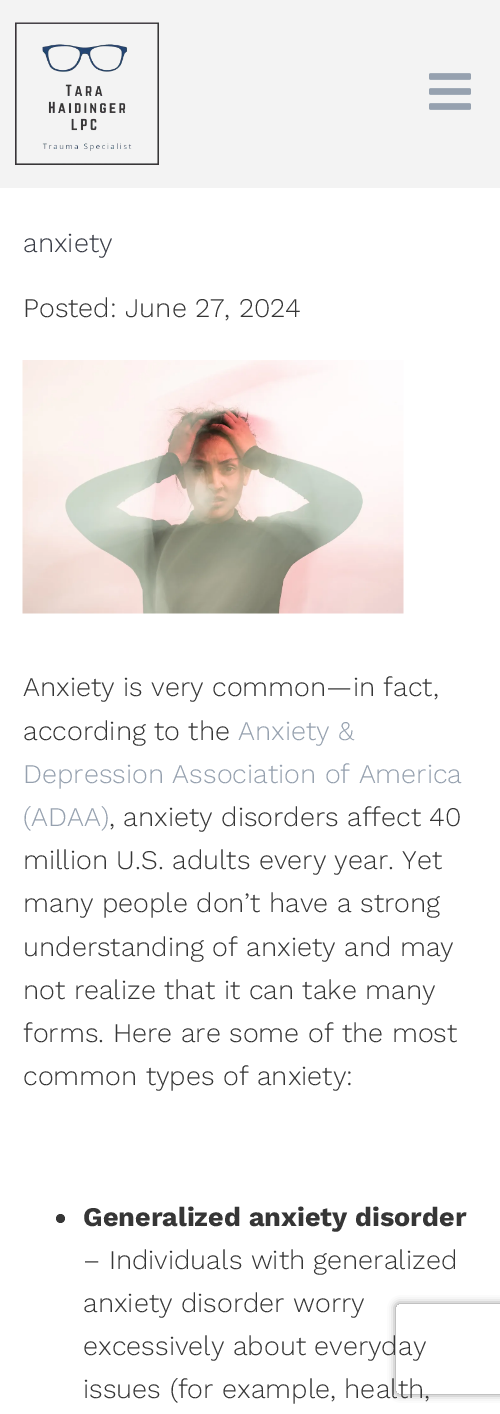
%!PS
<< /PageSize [500 1414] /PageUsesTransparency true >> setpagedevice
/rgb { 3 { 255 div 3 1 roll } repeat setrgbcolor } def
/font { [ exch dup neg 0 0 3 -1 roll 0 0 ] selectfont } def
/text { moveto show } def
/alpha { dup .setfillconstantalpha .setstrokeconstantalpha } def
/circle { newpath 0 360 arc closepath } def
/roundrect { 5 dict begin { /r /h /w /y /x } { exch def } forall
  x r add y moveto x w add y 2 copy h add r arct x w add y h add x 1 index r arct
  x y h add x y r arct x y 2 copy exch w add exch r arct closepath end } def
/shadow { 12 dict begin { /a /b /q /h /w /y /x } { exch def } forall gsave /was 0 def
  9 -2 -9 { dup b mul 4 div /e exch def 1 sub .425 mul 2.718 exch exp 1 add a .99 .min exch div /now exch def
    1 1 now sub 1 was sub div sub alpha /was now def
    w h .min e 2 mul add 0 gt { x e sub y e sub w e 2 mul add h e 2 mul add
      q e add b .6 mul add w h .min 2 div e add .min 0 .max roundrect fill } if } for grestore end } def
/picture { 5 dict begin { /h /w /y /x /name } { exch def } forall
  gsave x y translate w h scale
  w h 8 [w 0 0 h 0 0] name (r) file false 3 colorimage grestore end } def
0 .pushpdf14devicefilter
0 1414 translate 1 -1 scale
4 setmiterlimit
255 255 255 rgb
0 0 500 1414 rectfill
243 243 243 rgb
0 0 500 188 rectfill
(img_01.rgb) 15 22 144 143 picture
(img_02.rgb) 429 73 42 37 picture
(img_03.rgb) 22 360 382 254 picture
54 54 54 rgb
60.5 1218.5 4.5 circle fill
gsave
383 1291 moveto 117 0 rlineto 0 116 rlineto -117 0 rlineto closepath 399 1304 moveto 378 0 rlineto 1.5 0 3 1.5 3 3 rcurveto 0 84 rlineto 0 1.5 -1.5 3 -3 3 rcurveto -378 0 rlineto -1.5 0 -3 -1.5 -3 -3 rcurveto 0 -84 rlineto 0 -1.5 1.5 -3 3 -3 rcurveto closepath eoclip newpath
128 128 128 rgb
396 1304 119 90 3 4 1 shadow
grestore
/WorkSans-Light 27 font
57 60 70 rgb
(anxiety) 23 252 text
54 54 54 rgb
(Posted: June 27, 2024) 23 317 text
(Anxiety is very common—in fact,) 23 696 text
(according to the) 23 740 text
150 161 175 rgb
(Anxiety &) 238 740 text
(Depression Association of America) 23 783 text
(\(ADAA\)) 23 826 text
54 54 54 rgb
(, anxiety disorders affect 40) 109 826 text
(million U.S. adults every year. Yet) 23 869 text
(many people don’t have a strong) 23 912 text
(understanding of anxiety and may) 23 956 text
(not realize that it can take many) 23 999 text
(forms. Here are some of the most) 23 1042 text
(common types of anxiety:) 23 1085 text
/WorkSans-Bold 27 font
(Generalized anxiety disorder) 83 1226 text
/WorkSans-Light 27 font
(– Individuals with generalized) 83 1269 text
(anxiety disorder worry) 83 1312 text
(excessively about everyday) 83 1355 text
(issues \(for example, health,) 83 1398 text
.poppdf14devicefilter showpage
